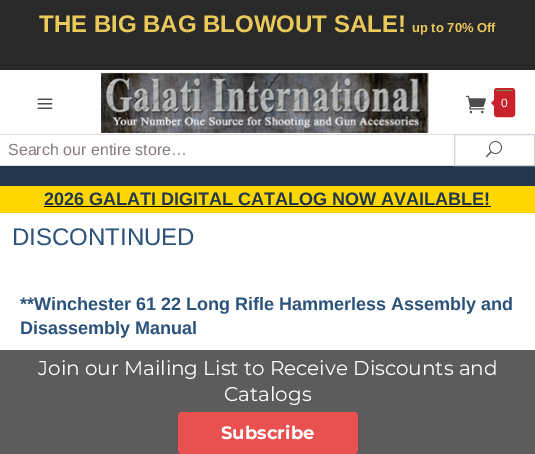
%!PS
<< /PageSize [535 454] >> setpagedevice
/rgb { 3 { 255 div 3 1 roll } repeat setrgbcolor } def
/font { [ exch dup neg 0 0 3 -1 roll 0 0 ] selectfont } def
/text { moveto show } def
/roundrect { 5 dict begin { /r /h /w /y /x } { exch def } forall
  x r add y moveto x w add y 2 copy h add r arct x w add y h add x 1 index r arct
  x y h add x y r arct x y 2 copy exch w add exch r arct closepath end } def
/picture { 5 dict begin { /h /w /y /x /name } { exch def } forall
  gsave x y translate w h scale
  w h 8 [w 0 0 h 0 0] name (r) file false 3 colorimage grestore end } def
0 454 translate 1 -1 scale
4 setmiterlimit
255 255 255 rgb
0 0 535 454 rectfill
41 41 41 rgb
0 0 535 70 rectfill
36 54 74 rgb
0 166 535 20 rectfill
(img_01.rgb) 37 98 16 11 picture
(img_02.rgb) 101 72 328 61 picture
(img_03.rgb) 466 95 20 19 picture
56 197 116 rgb
495 89 19 27 2 roundrect gsave fill grestore
201 34 42 rgb
2 setlinewidth
stroke
496 98 moveto 0 10 rlineto -5 -5 rlineto closepath fill
496 91 17 24 rectfill
222 222 222 rgb
0 134 454 1 rectfill
0 165 454 1 rectfill
204 209 217 rgb
1 setlinewidth
454.5 134.5 80 31 rectstroke
(img_04.rgb) 486 141 16 16 picture
255 215 0 rgb
0 186 535 27 rectfill
0 0 0 rgb
44 206 447 1 rectfill
92 92 92 rgb
0 350 535 104 rectfill
233 80 80 rgb
178 412 180 42 4 roundrect fill
/LiberationSans-Bold 24 font
234 201 91 rgb
(THE BIG BAG BLOWOUT SALE!) 39 32 text
/LiberationSans-Bold 13 font
(up to 70% Off) 412 32 text
/LiberationSans-Regular 12 font
255 255 255 rgb
(0) 501 107 text
/LiberationSans-Regular 16 font
138 123 123 rgb
(Search our entire store…) 8 155 text
/LiberationSans-Bold 18 font
35 55 74 rgb
(2026 GALATI DIGITAL CATALOG NOW AVAILABLE!) 44 205 text
/LiberationSans-Regular 24 font
42 82 122 rgb
(DISCONTINUED) 12 245 text
/LiberationSans-Bold 18 font
(**Winchester 61 22 Long Rifle Hammerless Assembly and) 20 310 text
(Disassembly Manual) 20 334 text
/Montserrat-Regular 20 font
255 255 255 rgb
(Join our Mailing List to Receive Discounts and) 38 375 text
(Catalogs) 224 401 text
/Montserrat-Bold 18 font
(Subscribe) 221 439 text
showpage
